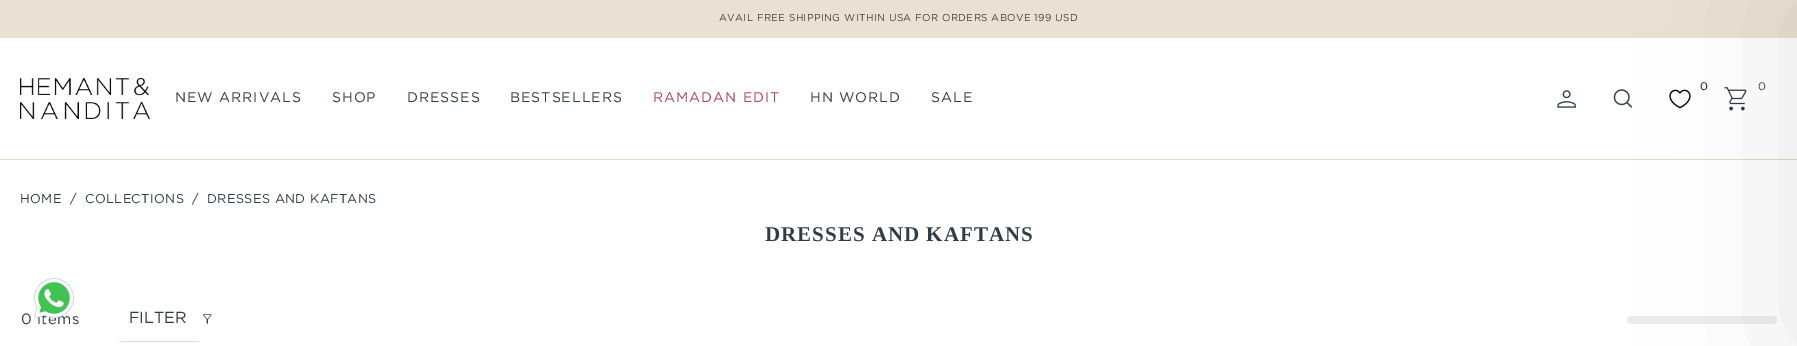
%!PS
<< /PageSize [1797 346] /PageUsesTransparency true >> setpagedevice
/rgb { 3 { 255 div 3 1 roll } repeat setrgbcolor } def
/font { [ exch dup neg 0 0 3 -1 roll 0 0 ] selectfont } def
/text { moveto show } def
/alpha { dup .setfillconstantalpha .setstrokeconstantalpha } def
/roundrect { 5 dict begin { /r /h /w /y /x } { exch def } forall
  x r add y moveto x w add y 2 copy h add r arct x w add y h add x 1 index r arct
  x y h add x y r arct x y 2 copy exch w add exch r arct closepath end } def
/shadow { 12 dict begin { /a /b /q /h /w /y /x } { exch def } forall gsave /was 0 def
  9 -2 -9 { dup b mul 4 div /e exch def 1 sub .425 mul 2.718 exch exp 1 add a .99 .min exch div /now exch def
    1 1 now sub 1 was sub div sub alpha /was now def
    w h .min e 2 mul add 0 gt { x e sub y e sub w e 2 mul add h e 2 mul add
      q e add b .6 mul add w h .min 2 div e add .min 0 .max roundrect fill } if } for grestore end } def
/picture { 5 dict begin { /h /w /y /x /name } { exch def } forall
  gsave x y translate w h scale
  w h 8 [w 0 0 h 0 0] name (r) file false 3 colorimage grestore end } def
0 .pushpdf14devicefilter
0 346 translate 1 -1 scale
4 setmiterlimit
255 255 255 rgb
0 0 1797 346 rectfill
234 225 212 rgb
0 0 1797 38 rectfill
233 216 195 rgb
0 159 1797 1 rectfill
(img_02.rgb) 1669 89 22 20 picture
(img_03.rgb) 1724 87 23 24 picture
(img_04.rgb) 1557 90 19 18 picture
(img_05.rgb) 1613 89 20 19 picture
237 237 237 rgb
1627 316 150 8 4 roundrect fill
0 0 0 rgb
1797 0 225 346 0 75 0.1 shadow
(img_01.rgb) 20 78 130 41 picture
233 216 195 rgb
119 341 80 1 rectfill
(img_06.rgb) 202 314 10 10 picture
/Gotham-Regular 10 font
78 70 37 rgb
719 21 moveto 0.38 0 (AVAIL FREE SHIPPING WITHIN USA FOR ORDERS ABOVE 199 USD) ashow
/Gotham-Regular 11 font
0 0 0 rgb
1700 90 moveto 1 0 (0) ashow
47 59 73 rgb
1758 90 moveto 1 0 (0) ashow
/Gotham-Regular 14 font
175 102 moveto 1 0 (NEW ARRIVALS) ashow
332 102 moveto 1 0 (SHOP) ashow
407 102 moveto 1 0 (DRESSES) ashow
510 102 moveto 1 0 (BESTSELLERS) ashow
177 64 104 rgb
653 102 moveto 1 0 (RAMADAN EDIT) ashow
47 59 73 rgb
810 102 moveto 1 0 (HN WORLD) ashow
931 102 moveto 1 0 (SALE) ashow
/Gotham-Regular 12.75 font
20 203 moveto 0.38 0 (HOME) ashow
70 203 moveto 0.38 0 (/) ashow
85 203 moveto 0.38 0 (COLLECTIONS) ashow
192 203 moveto 0.38 0 (/) ashow
207 203 moveto 0.38 0 (DRESSES AND KAFTANS) ashow
/LiberationSerif-Bold 21 font
765 241 moveto 1 0 (DRESSES AND KAFTANS) ashow
/Gotham-Regular 15 font
21 324 moveto 0.38 0 (0 items) ashow
/Gotham-Regular 16 font
(FILTER) 129 323 text
(img_07.rgb) 34 278 40 40 picture
.poppdf14devicefilter showpage
